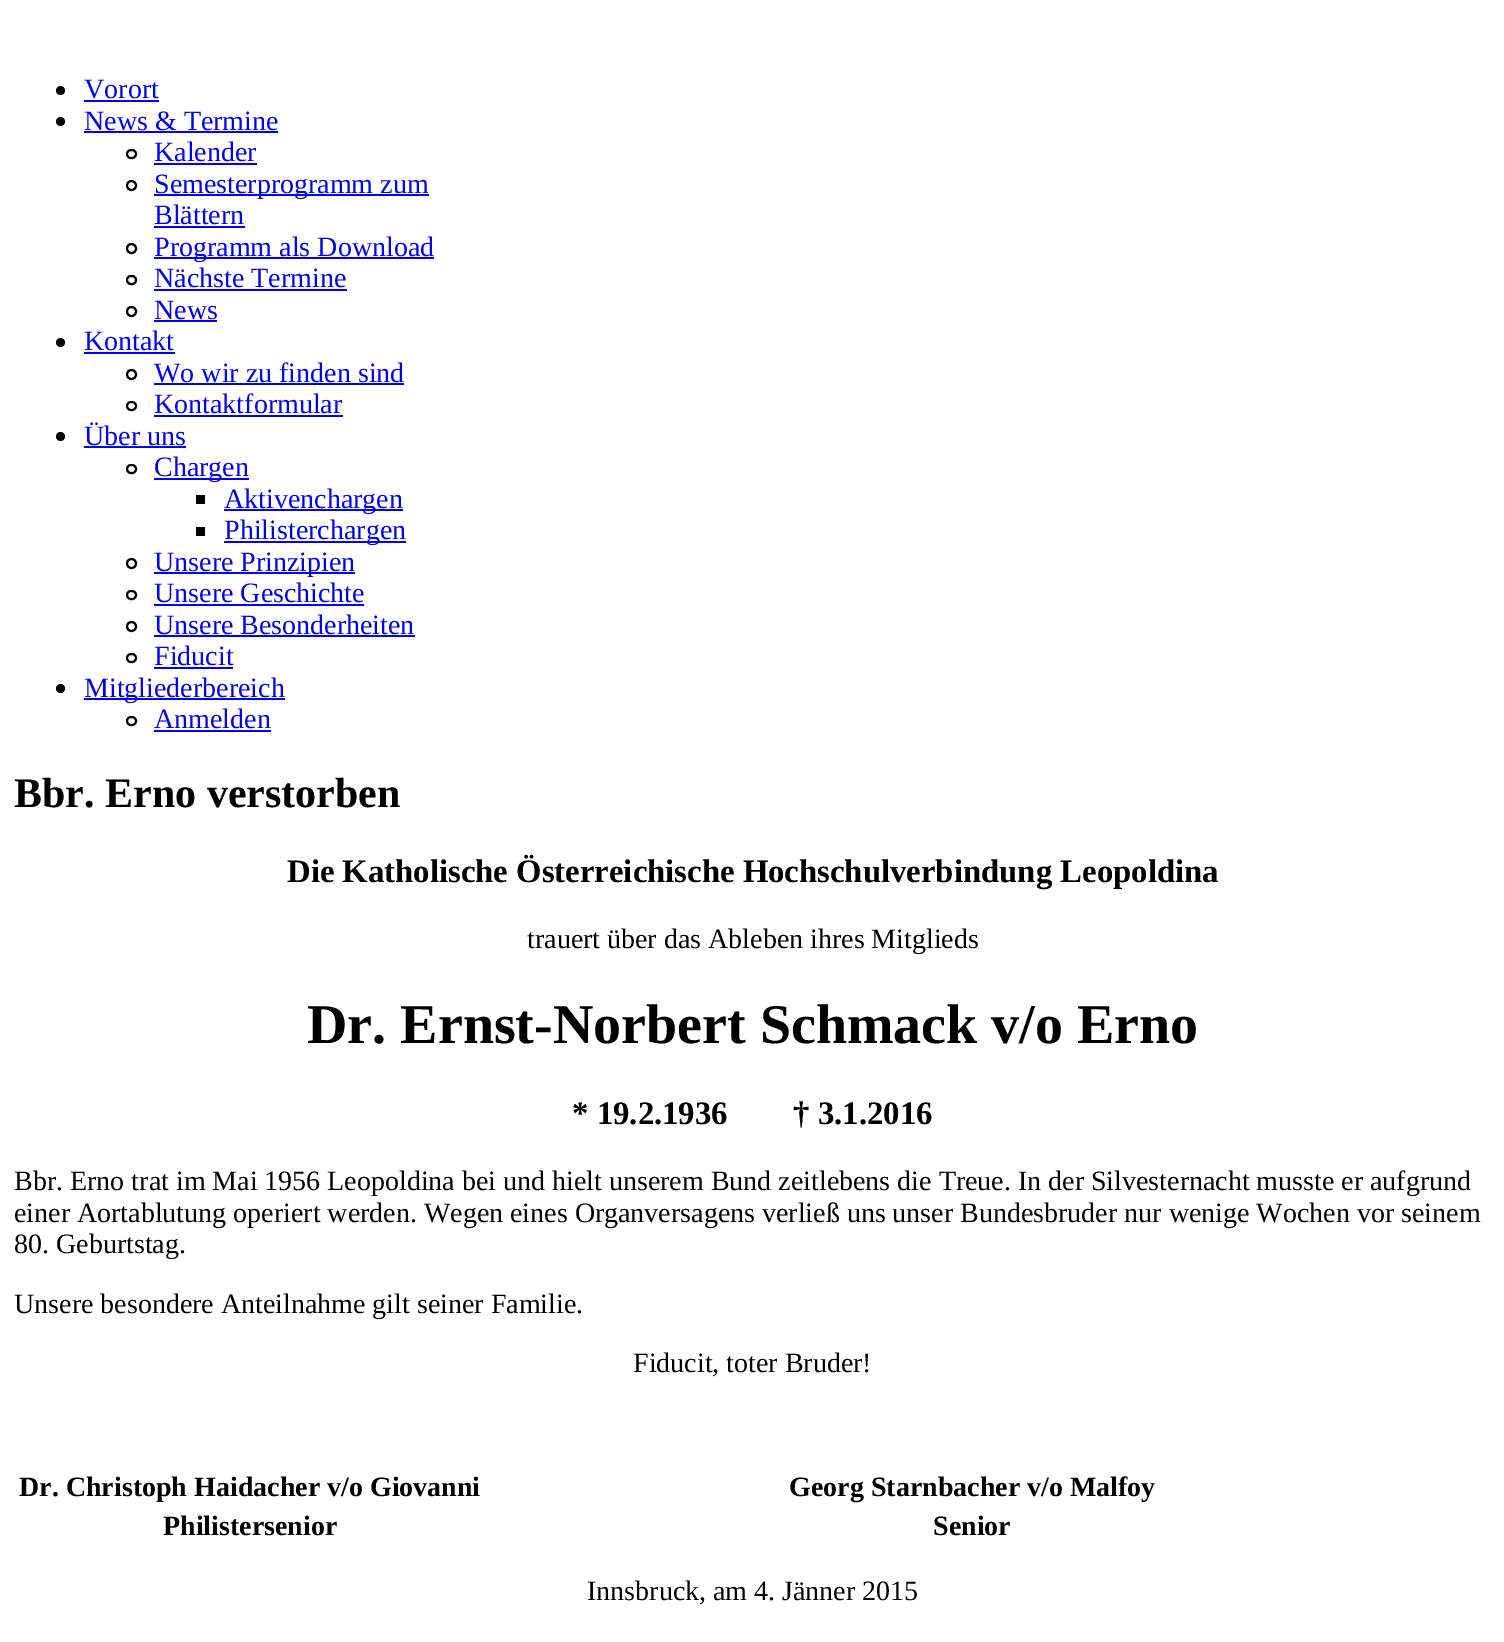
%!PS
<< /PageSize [1504 1642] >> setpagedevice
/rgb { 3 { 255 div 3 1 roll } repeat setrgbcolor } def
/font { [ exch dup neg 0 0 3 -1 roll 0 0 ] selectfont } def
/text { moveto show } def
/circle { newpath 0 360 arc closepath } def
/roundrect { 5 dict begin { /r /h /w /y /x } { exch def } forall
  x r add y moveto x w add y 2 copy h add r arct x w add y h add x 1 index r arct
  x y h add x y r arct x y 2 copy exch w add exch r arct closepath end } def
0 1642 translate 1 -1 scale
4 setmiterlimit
255 255 255 rgb
0 0 1504 1642 rectfill
0 0 0 rgb
60.5 90.5 4.5 circle fill
0 0 238 rgb
84 100 75 2 rectfill
0 0 0 rgb
60.5 121.5 4.5 circle fill
0 0 238 rgb
84 131 194 2 rectfill
0 0 0 rgb
2 setlinewidth
127 150 9 8 4 roundrect stroke
0 0 238 rgb
154 163 103 2 rectfill
0 0 0 rgb
131.5 185.5 4.5 circle stroke
0 0 238 rgb
154 194 275 2 rectfill
154 226 91 2 rectfill
0 0 0 rgb
131.5 248.5 4.5 circle stroke
0 0 238 rgb
154 257 280 2 rectfill
0 0 0 rgb
127 276 9 8 4 roundrect stroke
0 0 238 rgb
154 289 193 2 rectfill
0 0 0 rgb
131.5 311.5 4.5 circle stroke
0 0 238 rgb
154 320 63 2 rectfill
0 0 0 rgb
60.5 342.5 4.5 circle fill
0 0 238 rgb
84 352 91 2 rectfill
0 0 0 rgb
131.5 374.5 4.5 circle stroke
0 0 238 rgb
154 383 250 2 rectfill
0 0 0 rgb
127 402 9 8 4 roundrect stroke
0 0 238 rgb
154 415 189 2 rectfill
0 0 0 rgb
60.5 436.5 4.5 circle fill
0 0 238 rgb
84 446 102 2 rectfill
0 0 0 rgb
127 465 9 8 4 roundrect stroke
0 0 238 rgb
154 478 95 2 rectfill
0 0 0 rgb
196 495 9 9 rectfill
0 0 238 rgb
224 509 179 2 rectfill
0 0 0 rgb
196 527 9 9 rectfill
0 0 238 rgb
224 541 182 2 rectfill
0 0 0 rgb
131.5 563.5 4.5 circle stroke
0 0 238 rgb
154 572 201 2 rectfill
0 0 0 rgb
127 591 9 8 4 roundrect stroke
0 0 238 rgb
154 604 210 2 rectfill
0 0 0 rgb
131.5 626.5 4.5 circle stroke
0 0 238 rgb
154 635 261 2 rectfill
0 0 0 rgb
127 654 9 8 4 roundrect stroke
0 0 238 rgb
154 667 79 2 rectfill
0 0 0 rgb
60.5 688.5 4.5 circle fill
0 0 238 rgb
84 698 201 2 rectfill
0 0 0 rgb
127 717 9 8 4 roundrect stroke
0 0 238 rgb
154 730 117 2 rectfill
/LiberationSerif-Regular 28 font
(Vorort) 84 98 text
(News & Termine) 84 130 text
(Kalender) 154 161 text
(Semesterprogramm zum) 154 193 text
(Blättern) 154 224 text
(Programm als Download) 154 256 text
(Nächste Termine) 154 287 text
(News) 154 319 text
(Kontakt) 84 350 text
(Wo wir zu finden sind) 154 382 text
(Kontaktformular) 154 413 text
(Über uns) 84 445 text
(Chargen) 154 476 text
(Aktivenchargen) 224 508 text
(Philisterchargen) 224 539 text
(Unsere Prinzipien) 154 571 text
(Unsere Geschichte) 154 602 text
(Unsere Besonderheiten) 154 634 text
(Fiducit) 154 665 text
(Mitgliederbereich) 84 697 text
(Anmelden) 154 728 text
/LiberationSerif-Bold 42 font
0 0 0 rgb
(Bbr. Erno verstorben) 14 807 text
/LiberationSerif-Bold 32.75 font
(Die Katholische Österreichische Hochschulverbindung Leopoldina) 287 882 text
/LiberationSerif-Regular 28 font
(trauert über das Ableben ihres Mitglieds) 527 948 text
/LiberationSerif-Bold 56 font
(Dr. Ernst-Norbert Schmack v/o Erno) 307 1043 text
/LiberationSerif-Bold 32.75 font
(* 19.2.1936        † 3.1.2016) 572 1124 text
/LiberationSerif-Regular 28 font
(Bbr. Erno trat im Mai 1956 Leopoldina bei und hielt unserem Bund zeitlebens die Treue. In der Silvesternacht musste er aufgrund) 14 1190 text
(einer Aortablutung operiert werden. Wegen eines Organversagens verließ uns unser Bundesbruder nur wenige Wochen vor seinem) 14 1222 text
(80. Geburtstag.) 14 1253 text
(Unsere besondere Anteilnahme gilt seiner Familie.) 14 1313 text
(Fiducit, toter Bruder!) 633 1372 text
/LiberationSerif-Bold 28 font
(Dr. Christoph Haidacher v/o Giovanni) 19 1496 text
(Georg Starnbacher v/o Malfoy) 789 1496 text
(Philistersenior) 163 1535 text
(Senior) 933 1535 text
/LiberationSerif-Regular 28 font
(Innsbruck, am 4. Jänner 2015) 587 1600 text
showpage
